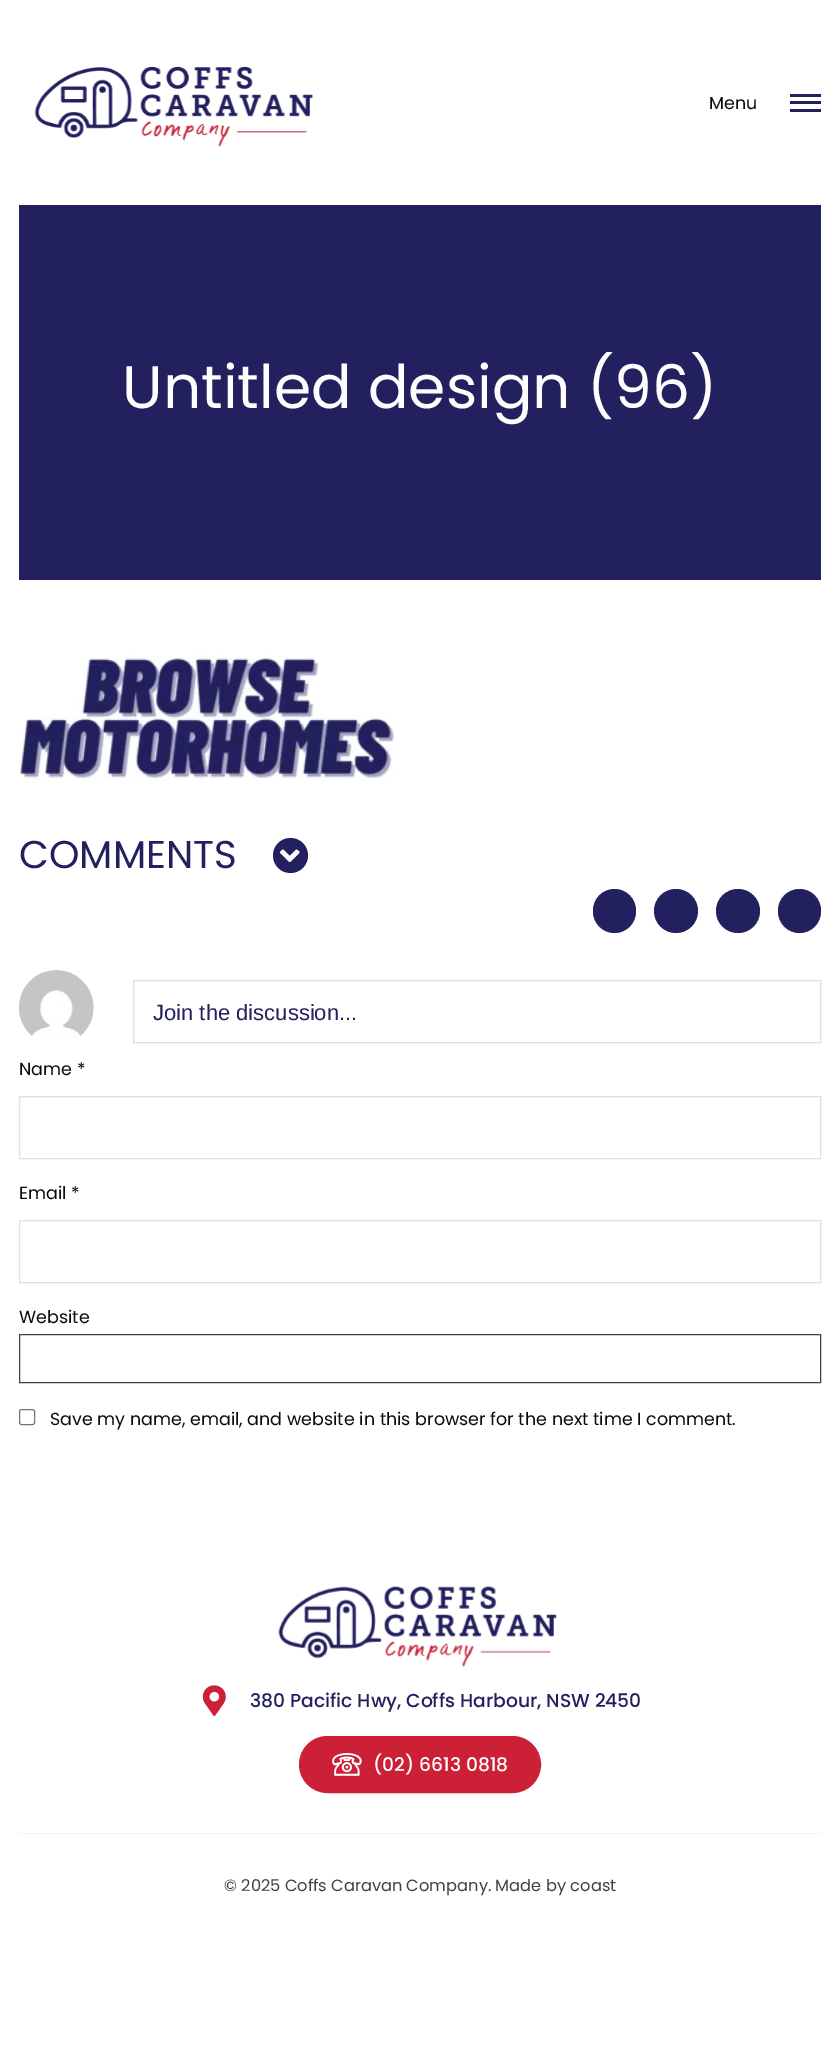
%!PS
<< /PageSize [840 2056] >> setpagedevice
/rgb { 3 { 255 div 3 1 roll } repeat setrgbcolor } def
/font { [ exch dup neg 0 0 3 -1 roll 0 0 ] selectfont } def
/text { moveto show } def
/circle { newpath 0 360 arc closepath } def
/roundrect { 5 dict begin { /r /h /w /y /x } { exch def } forall
  x r add y moveto x w add y 2 copy h add r arct x w add y h add x 1 index r arct
  x y h add x y r arct x y 2 copy exch w add exch r arct closepath end } def
/picture { 5 dict begin { /h /w /y /x /name } { exch def } forall
  gsave x y translate w h scale
  w h 8 [w 0 0 h 0 0] name (r) file false 3 colorimage grestore end } def
0 2056 translate 1 -1 scale
4 setmiterlimit
255 255 255 rgb
0 0 840 2056 rectfill
(img_01.rgb) 34 66 279 81 picture
34 32 95 rgb
790 94 31 3 rectfill
790 101 31 3 rectfill
790 109 31 3 rectfill
19 205 802 375 rectfill
(img_02.rgb) 19 655 375 125 picture
290.5 855.5 17.5 circle fill
(img_03.rgb) 280 849 20 14 picture
593 889 43 44 21.5 roundrect fill
676 911 22 circle fill
738 911 22 circle fill
778 889 43 44 21.5 roundrect fill
(img_04.rgb) 19 970 75 66 picture
224 224 224 rgb
133.5 980.5 687 62 rectstroke
19.5 1096.5 801 62 rectstroke
19.5 1220.5 801 62 rectstroke
65 65 66 rgb
19.5 1334.5 801 48 rectstroke
118 118 118 rgb
19.5 1409.5 15 15 2 roundrect stroke
(img_05.rgb) 278 1586 279 81 picture
(img_06.rgb) 202 1685 24 31 picture
204 32 54 rgb
300.5 1737.5 239 54 27 roundrect gsave fill grestore
3 setlinewidth
stroke
(img_07.rgb) 332 1753 30 23 picture
242 242 242 rgb
19 1833 802 1 rectfill
/Poppins-Regular 17.5 font
10 10 10 rgb
(Menu) 709 109 text
/Poppins-Regular 60 font
254 254 254 rgb
(Untitled design \(96\)) 122 408 text
/Poppins-Regular 38.75 font
34 32 95 rgb
(COMMENTS) 19 868 text
/LiberationSans-Regular 22 font
(Join the discussion...) 153 1020 text
/Poppins-Regular 17.5 font
10 10 10 rgb
(Name *) 19 1075 text
(Email *) 19 1199 text
(Website) 19 1323 text
(Save my name, email, and website in this browser for the next time I comment.) 50 1425 text
/Poppins-Medium 18.75 font
34 32 95 rgb
(380 Pacific Hwy, Coffs Harbour, NSW 2450) 250 1707 text
254 254 254 rgb
(\(02\) 6613 0818) 373 1771 text
/Poppins-Regular 16.25 font
65 65 66 rgb
(© 2025 Coffs Caravan Company. Made by coast) 224 1891 text
showpage
